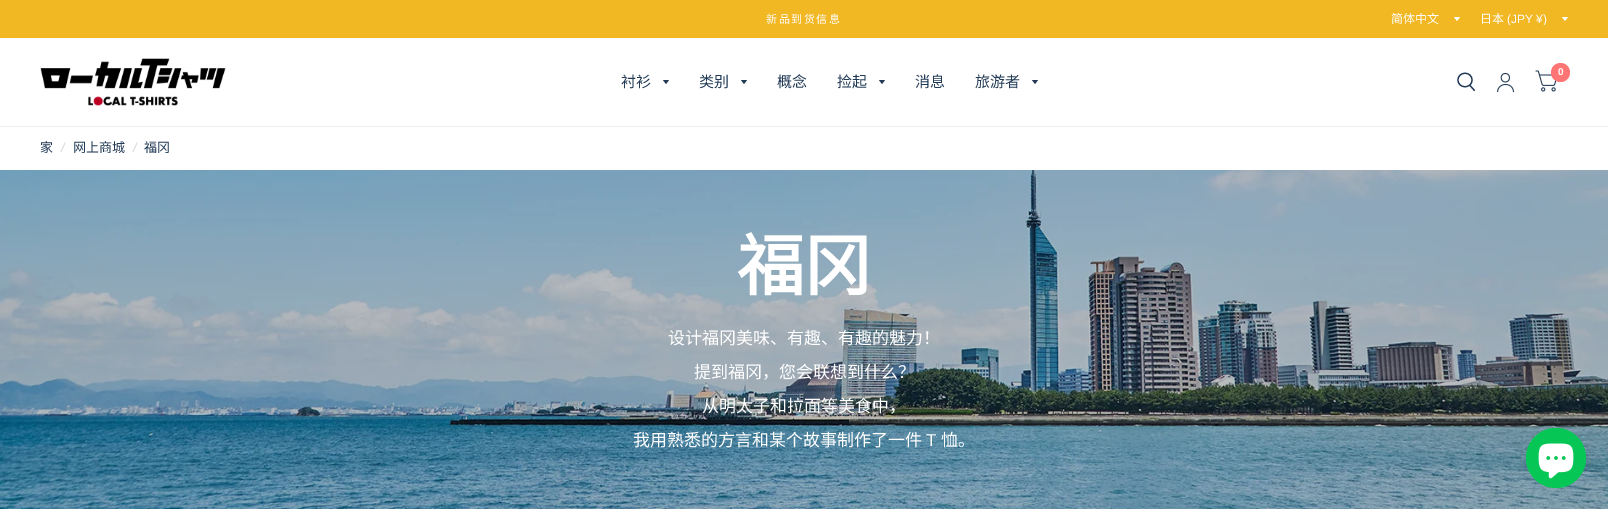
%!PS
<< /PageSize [1608 509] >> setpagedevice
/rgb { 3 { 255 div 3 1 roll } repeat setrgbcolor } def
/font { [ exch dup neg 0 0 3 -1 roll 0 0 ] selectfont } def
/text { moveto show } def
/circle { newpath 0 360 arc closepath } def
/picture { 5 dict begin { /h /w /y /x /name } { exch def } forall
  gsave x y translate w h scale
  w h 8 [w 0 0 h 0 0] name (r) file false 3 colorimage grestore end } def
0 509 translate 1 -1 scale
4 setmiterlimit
255 255 255 rgb
0 0 1608 509 rectfill
241 184 36 rgb
0 0 1608 38 rectfill
255 255 255 rgb
1454 17 moveto 6 0 rlineto -3 4 rlineto closepath fill
1562 17 moveto 6 0 rlineto -3 4 rlineto closepath fill
238 238 238 rgb
0 126 1608 1 rectfill
(img_01.rgb) 40 58 186 48 picture
34 58 86 rgb
1.2 setlinewidth
1 setlinecap
1 setlinejoin
1470 85.5 moveto 4.5 5 rlineto 1472 80 moveto 0 9 -14 9 -14 0 rcurveto 0 -9 14 -9 14 0 rcurveto closepath stroke
(img_02.rgb) 1497 72 18 21 picture
(img_03.rgb) 1535 70 22 22 picture
255 117 117 rgb
1560.5 72.5 9.5 circle fill
34 58 86 rgb
663 80 moveto 6 0 rlineto -3 4 rlineto closepath fill
741 80 moveto 6 0 rlineto -3 4 rlineto closepath fill
879 80 moveto 6 0 rlineto -3 4 rlineto closepath fill
1032 80 moveto 6 0 rlineto -3 4 rlineto closepath fill
(img_04.rgb) 0 170 1608 339 picture
6 199 85 rgb
1556 458 30 circle fill
(img_05.rgb) 1538 443 36 36 picture
/NotoSansCJKSC-Regular 11 font
255 255 255 rgb
766 23 moveto 1.5 0 (新品到货信息) ashow
/NotoSansCJKSC-Regular 12 font
(简体中文) 1391 23 text
(日本) 1480 23 text
gsave
1480 13 78 12 rectclip
/LiberationSans-Regular 12 font
(\(JPY ¥\)) 1507 23 text
grestore
/LiberationSans-Bold 10 font
(0) 1558 75 text
/NotoSansCJKSC-Regular 15 font
34 58 86 rgb
(衬衫) 621 87 text
(类别) 699 87 text
(概念) 777 87 text
(捡起) 837 87 text
(消息) 915 87 text
(旅游者) 975 87 text
/NotoSansCJKSC-Regular 13 font
(家) 40 152 text
/LiberationSans-Italic 13 font
211 216 221 rgb
(/) 61 152 text
/NotoSansCJKSC-Regular 13 font
34 58 86 rgb
(网上商城) 73 152 text
/LiberationSans-Italic 13 font
211 216 221 rgb
(/) 133 152 text
/NotoSansCJKSC-Regular 13 font
34 58 86 rgb
(福冈) 144 152 text
/NotoSansCJKSC-Bold 67 font
255 255 255 rgb
(福冈) 737 290 text
/NotoSansCJKSC-Regular 17 font
(设计福冈美味、有趣、有趣的魅力！) 668 344 text
(提到福冈，您会联想到什么？) 694 378 text
(从明太子和拉面等美食中，) 702 412 text
(我用熟悉的方言和某个故事制作了一件) 633 446 text
/LiberationSans-Regular 17 font
(T) 926 446 text
/NotoSansCJKSC-Regular 17 font
(恤。) 941 446 text
showpage
